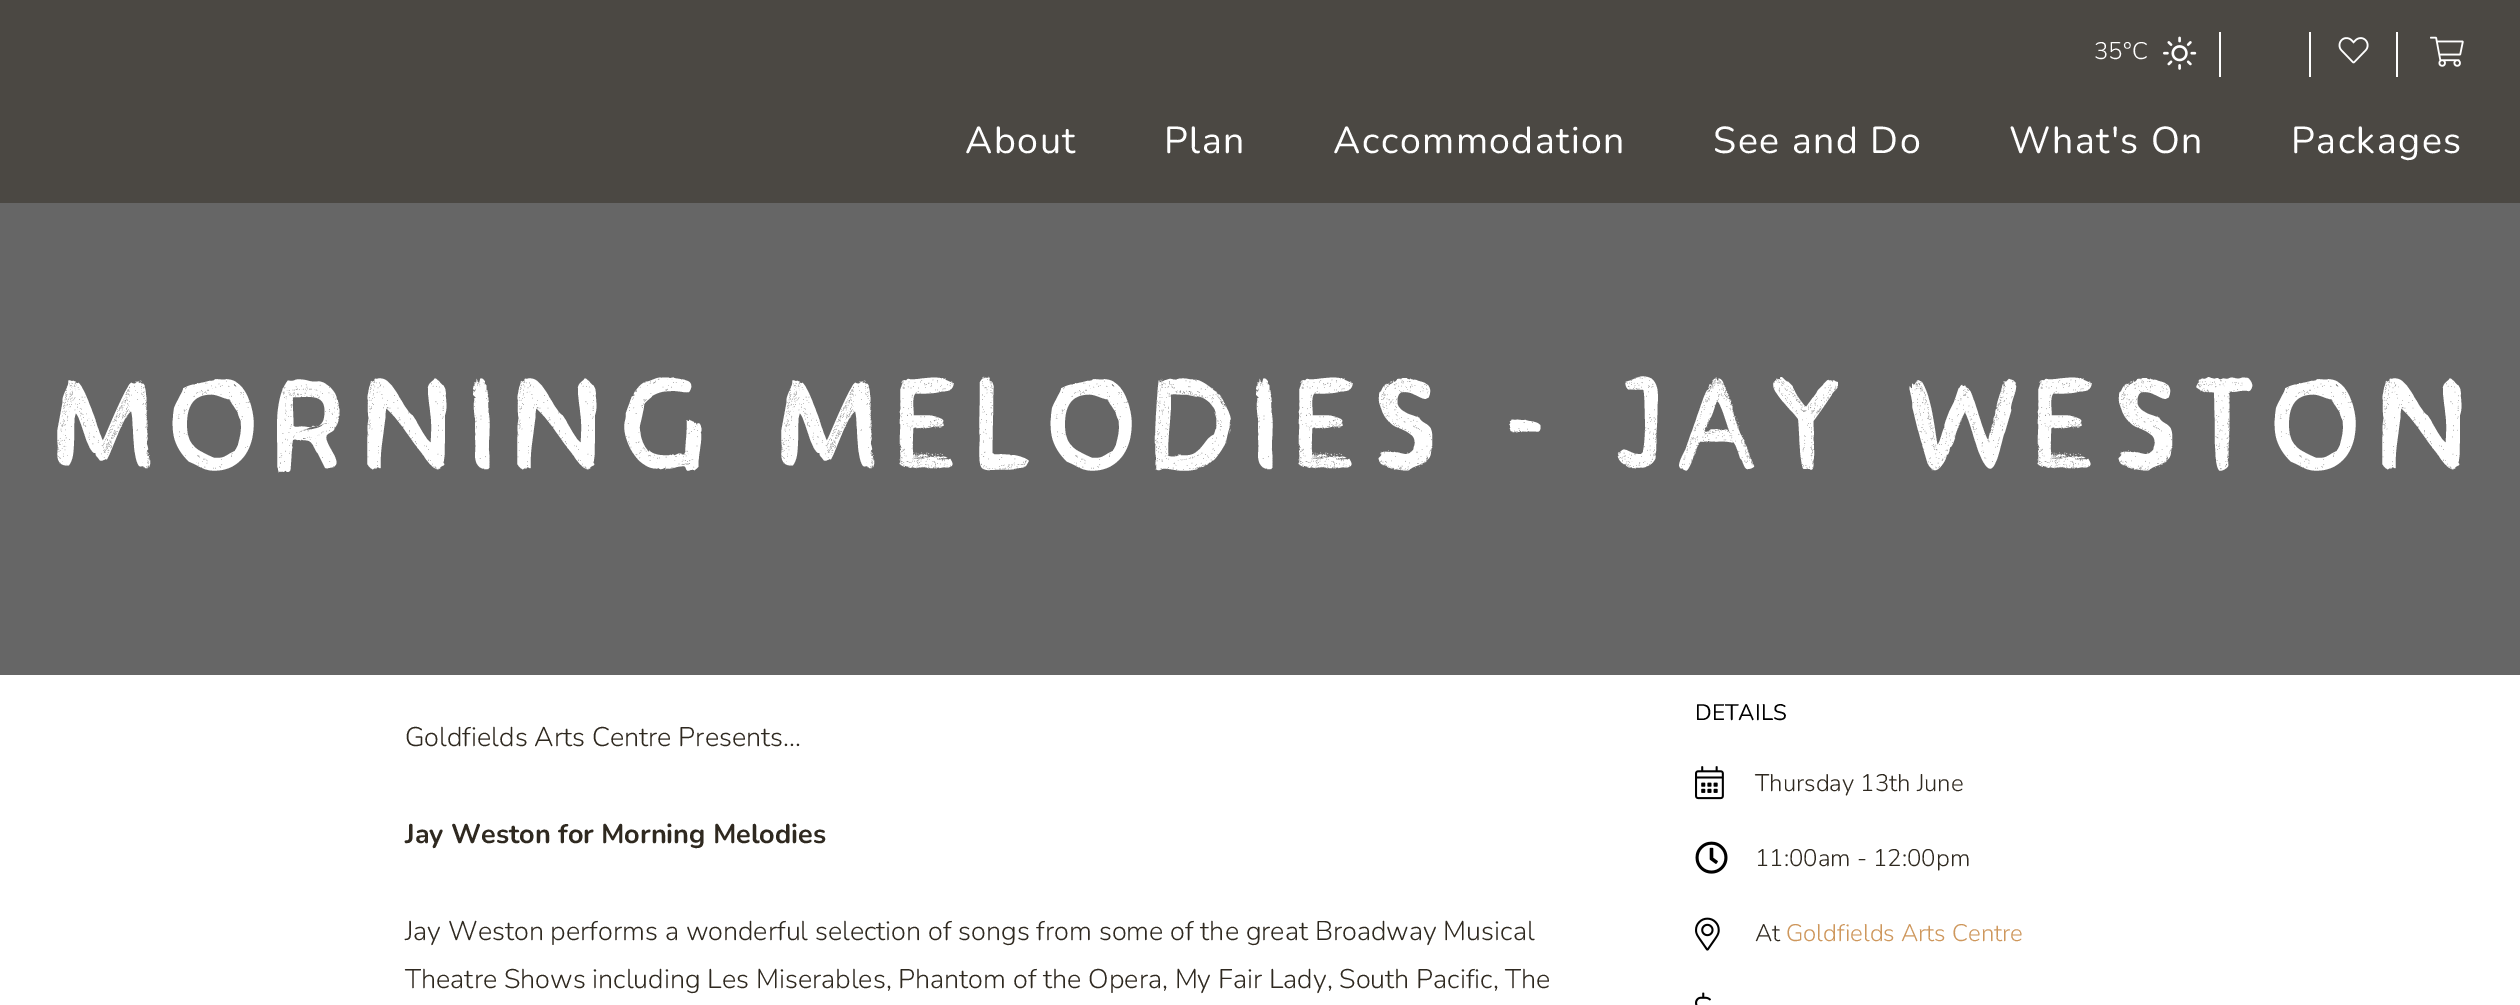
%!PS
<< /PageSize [2520 1005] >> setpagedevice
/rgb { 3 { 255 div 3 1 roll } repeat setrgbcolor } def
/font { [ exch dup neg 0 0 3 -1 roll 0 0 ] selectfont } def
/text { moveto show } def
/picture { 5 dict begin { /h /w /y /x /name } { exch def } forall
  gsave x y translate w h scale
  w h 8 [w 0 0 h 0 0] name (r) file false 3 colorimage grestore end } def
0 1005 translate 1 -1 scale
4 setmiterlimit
255 255 255 rgb
0 0 2520 1005 rectfill
75 72 67 rgb
0 0 2520 203 rectfill
(img_01.rgb) 2163 36 34 34 picture
255 255 255 rgb
2219 32 2 45 rectfill
2309 32 2 45 rectfill
(img_02.rgb) 2338 37 31 27 picture
2396 32 2 45 rectfill
(img_03.rgb) 2430 36 34 31 picture
102 102 102 rgb
0 203 2520 472 rectfill
(img_04.rgb) 1695 766 29 34 picture
(img_05.rgb) 1695 841 33 33 picture
(img_06.rgb) 1695 917 25 34 picture
(img_07.rgb) 1695 992 16 13 picture
/Nunito-Light 24 font
255 255 255 rgb
(35°C) 2094 59 text
/Nunito-Regular 37.5 font
965 153 moveto 1.5 0 (About) ashow
1164 153 moveto 1.5 0 (Plan) ashow
1333 153 moveto 1.5 0 (Accommodation) ashow
1713 153 moveto 1.5 0 (See and Do) ashow
2009 153 moveto 1.5 0 (What's On) ashow
2291 153 moveto 1.5 0 (Packages) ashow
/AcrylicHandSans-Regular 120 font
(Morning Melodies - Jay Weston) 45 469 text
/Nunito-Light 27 font
47 41 32 rgb
(Goldfields Arts Centre Presents...) 405 746 text
/Nunito-Bold 27 font
(Jay Weston for Morning Melodies) 405 843 text
/Nunito-Light 27 font
(Jay Weston performs a wonderful selection of songs from some of the great Broadway Musical) 405 940 text
(Theatre Shows including Les Miserables, Phantom of the Opera, My Fair Lady, South Pacific, The) 405 988 text
/Nunito-Regular 22.5 font
0 0 0 rgb
(DETAILS) 1695 720 text
/Nunito-Light 24 font
47 41 32 rgb
(Thursday 13th June) 1755 791 text
(11:00am - 12:00pm) 1755 866 text
(At) 1755 941 text
206 151 92 rgb
(Goldfields Arts Centre) 1786 941 text
showpage
